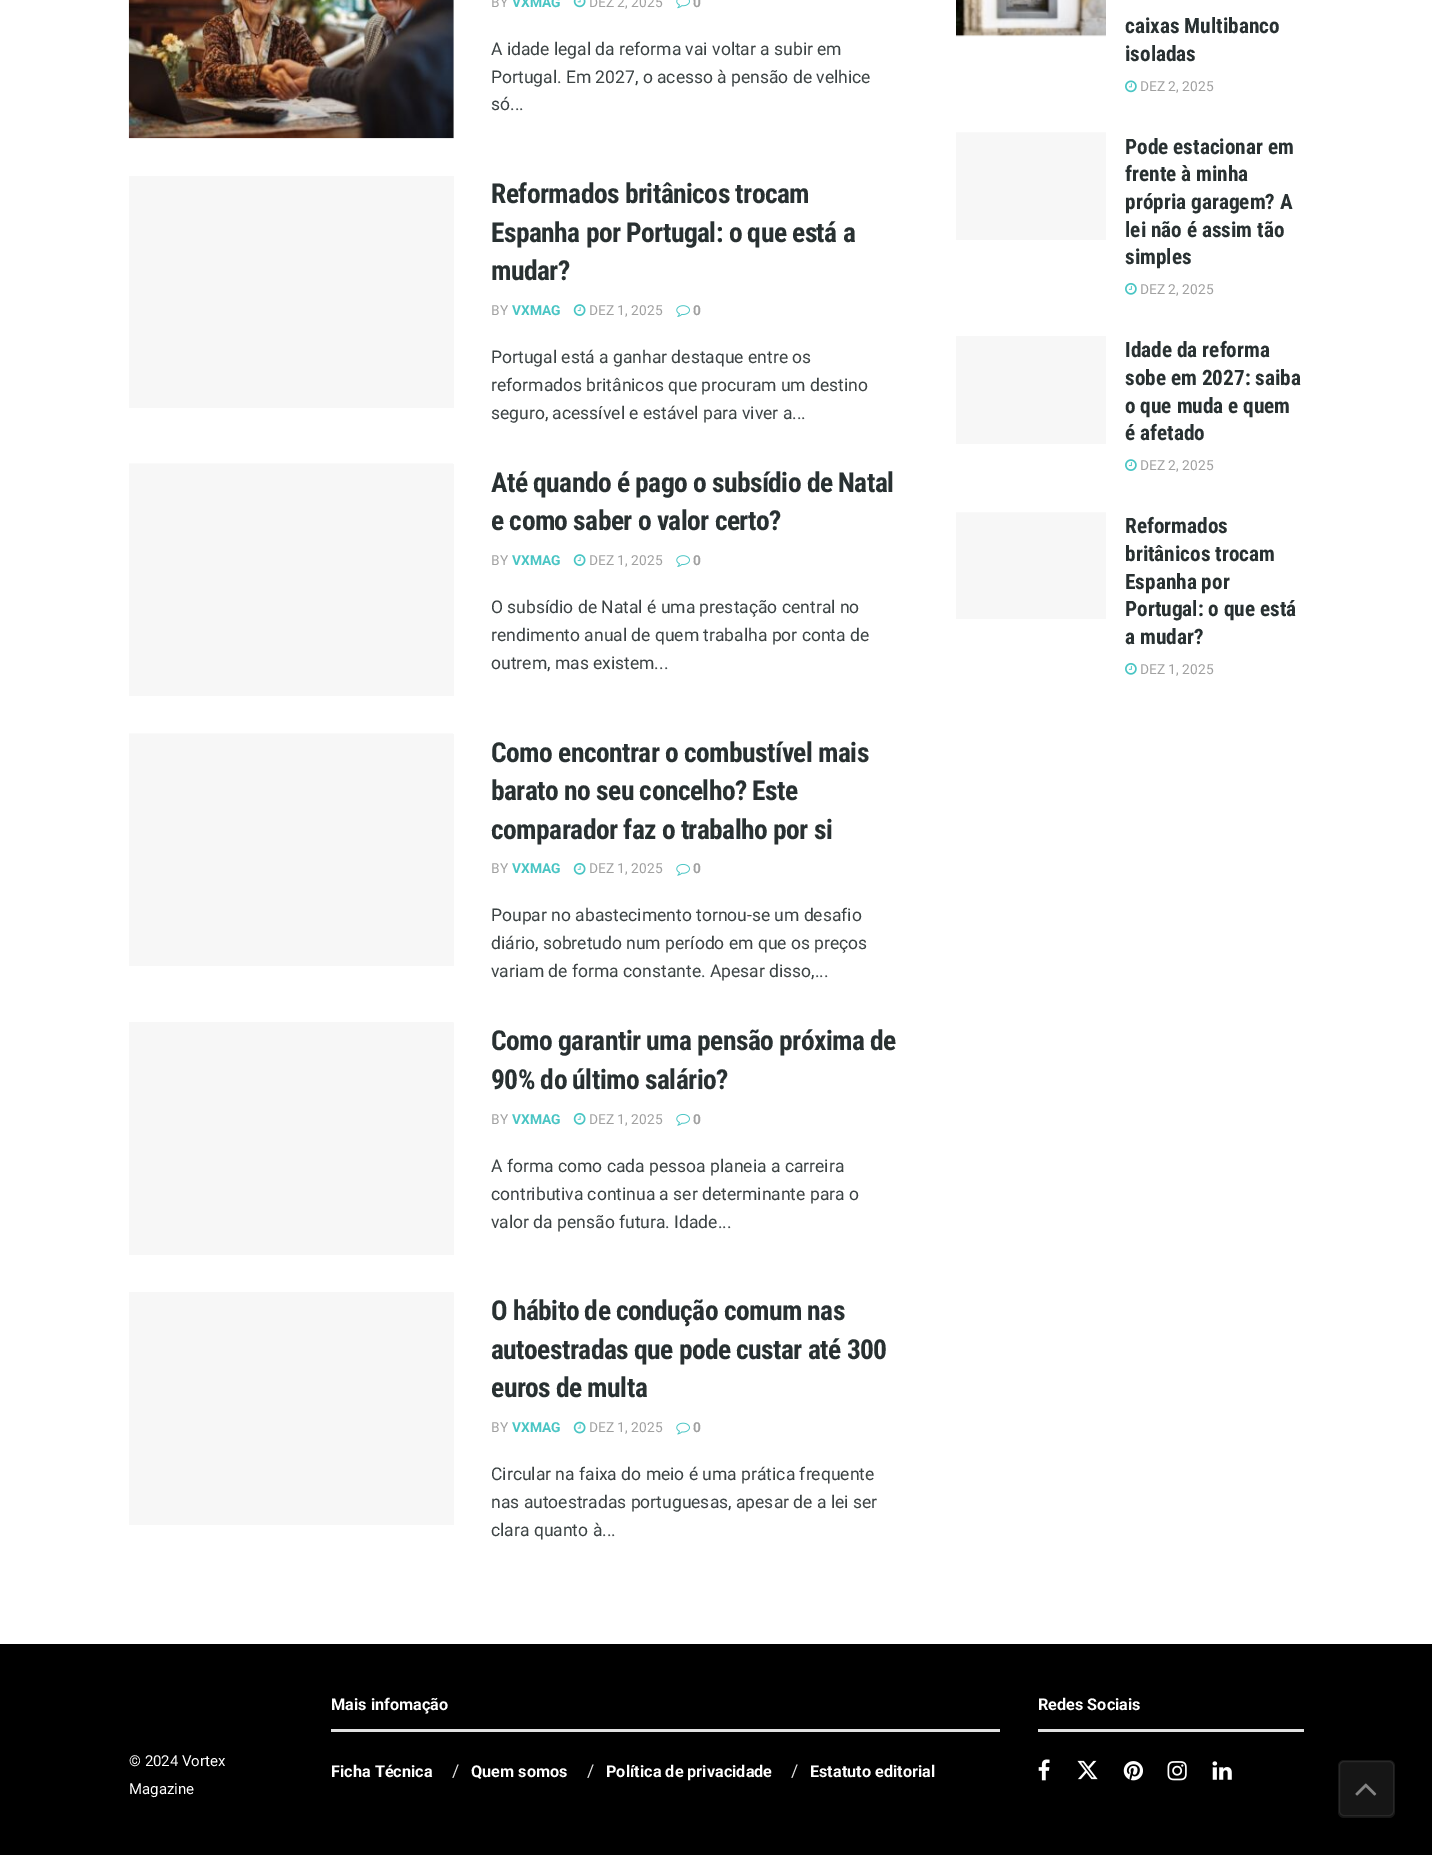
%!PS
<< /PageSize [1432 1855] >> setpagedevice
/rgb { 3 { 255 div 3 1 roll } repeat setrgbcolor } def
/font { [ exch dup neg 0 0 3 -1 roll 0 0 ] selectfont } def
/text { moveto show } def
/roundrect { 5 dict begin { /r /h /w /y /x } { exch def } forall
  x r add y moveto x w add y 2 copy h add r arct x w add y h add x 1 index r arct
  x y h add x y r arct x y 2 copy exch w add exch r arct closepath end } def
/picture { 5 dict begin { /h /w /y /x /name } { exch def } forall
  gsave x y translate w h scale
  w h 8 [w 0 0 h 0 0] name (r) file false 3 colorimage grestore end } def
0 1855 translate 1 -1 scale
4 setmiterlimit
255 255 255 rgb
0 0 1432 1855 rectfill
247 247 247 rgb
129 0 325 139 rectfill
(img_01.rgb) 128 0 326 139 picture
(img_02.rgb) 573 0 13 8 picture
(img_03.rgb) 676 0 14 9 picture
129 176 325 232 rectfill
(img_04.rgb) 573 304 13 12 picture
(img_05.rgb) 676 305 14 12 picture
129 464 325 232 rectfill
250 250 250 rgb
129 463 324 1 rectfill
(img_04.rgb) 573 554 13 12 picture
(img_05.rgb) 676 555 14 12 picture
247 247 247 rgb
129 734 325 232 rectfill
250 250 250 rgb
129 733 324 1 rectfill
(img_06.rgb) 573 862 13 13 picture
(img_07.rgb) 676 863 14 13 picture
247 247 247 rgb
129 1023 325 232 rectfill
(img_08.rgb) 129 1022 325 1 picture
(img_06.rgb) 573 1112 13 13 picture
(img_07.rgb) 676 1113 14 13 picture
129 1293 325 232 rectfill
(img_08.rgb) 129 1292 325 1 picture
(img_09.rgb) 573 1421 13 13 picture
(img_10.rgb) 676 1422 14 13 picture
956 35 150 1 rectfill
(img_11.rgb) 956 0 150 37 picture
(img_12.rgb) 1125 80 12 13 picture
956 133 150 107 rectfill
249 249 249 rgb
956 132 150 1 rectfill
(img_13.rgb) 1125 283 12 12 picture
247 247 247 rgb
956 336 150 108 rectfill
(img_14.rgb) 1125 459 12 12 picture
956 513 150 106 rectfill
249 249 249 rgb
956 512 150 1 rectfill
(img_13.rgb) 1125 663 12 12 picture
0 0 0 rgb
0 1644 1432 211 rectfill
224 224 224 rgb
331 1729 669 3 rectfill
1038 1729 266 3 rectfill
(img_15.rgb) 1038 1759 12 22 picture
(img_16.rgb) 1077 1760 21 20 picture
(img_17.rgb) 1123 1761 20 20 picture
(img_18.rgb) 1167 1761 20 20 picture
(img_19.rgb) 1212 1761 20 19 picture
22 22 22 rgb
1338 1760 57 58 6 roundrect fill
40 40 40 rgb
1339.5 1761.5 54 54 4.5 roundrect stroke
(img_20.rgb) 1355 1783 22 13 picture
/Roboto-Regular 13.75 font
160 160 160 rgb
(BY) 491 7 text
/Roboto-Bold 13.75 font
73 197 196 rgb
(VXMAG) 512 7 text
/Roboto-Regular 13.75 font
160 160 160 rgb
(DEZ 2, 2025) 589 7 text
/Roboto-Bold 13.75 font
(0) 693 7 text
/Roboto-Regular 17.5 font
60 67 68 rgb
(A idade legal da reforma vai voltar a subir em) 491 55 text
(Portugal. Em 2027, o acesso à pensão de velhice) 491 83 text
(só...) 491 110 text
/RobotoCondensed-Bold 27.5 font
41 49 50 rgb
491 203 moveto -0.55 0 (Reformados britânicos trocam) ashow
491 242 moveto -0.55 0 (Espanha por Portugal: o que está a) ashow
491 280 moveto -0.55 0 (mudar?) ashow
/Roboto-Regular 13.75 font
160 160 160 rgb
(BY) 491 315 text
/Roboto-Bold 13.75 font
73 197 196 rgb
(VXMAG) 512 315 text
/Roboto-Regular 13.75 font
160 160 160 rgb
(DEZ 1, 2025) 589 315 text
/Roboto-Bold 13.75 font
(0) 693 315 text
/Roboto-Regular 17.5 font
60 67 68 rgb
(Portugal está a ganhar destaque entre os) 491 363 text
(reformados britânicos que procuram um destino) 491 391 text
(seguro, acessível e estável para viver a...) 491 419 text
/RobotoCondensed-Bold 27.5 font
41 49 50 rgb
491 492 moveto -0.55 0 (Até quando é pago o subsídio de Natal) ashow
491 530 moveto -0.55 0 (e como saber o valor certo?) ashow
/Roboto-Regular 13.75 font
160 160 160 rgb
(BY) 491 565 text
/Roboto-Bold 13.75 font
73 197 196 rgb
(VXMAG) 512 565 text
/Roboto-Regular 13.75 font
160 160 160 rgb
(DEZ 1, 2025) 589 565 text
/Roboto-Bold 13.75 font
(0) 693 565 text
/Roboto-Regular 17.5 font
60 67 68 rgb
(O subsídio de Natal é uma prestação central no) 491 613 text
(rendimento anual de quem trabalha por conta de) 491 641 text
(outrem, mas existem...) 491 669 text
/RobotoCondensed-Bold 27.5 font
41 49 50 rgb
491 762 moveto -0.55 0 (Como encontrar o combustível mais) ashow
491 800 moveto -0.55 0 (barato no seu concelho? Este) ashow
491 839 moveto -0.55 0 (comparador faz o trabalho por si) ashow
/Roboto-Regular 13.75 font
160 160 160 rgb
(BY) 491 873 text
/Roboto-Bold 13.75 font
73 197 196 rgb
(VXMAG) 512 873 text
/Roboto-Regular 13.75 font
160 160 160 rgb
(DEZ 1, 2025) 589 873 text
/Roboto-Bold 13.75 font
(0) 693 873 text
/Roboto-Regular 17.5 font
60 67 68 rgb
(Poupar no abastecimento tornou-se um desafio) 491 921 text
(diário, sobretudo num período em que os preços) 491 949 text
(variam de forma constante. Apesar disso,...) 491 977 text
/RobotoCondensed-Bold 27.5 font
41 49 50 rgb
491 1050 moveto -0.55 0 (Como garantir uma pensão próxima de) ashow
491 1089 moveto -0.55 0 (90% do último salário?) ashow
/Roboto-Regular 13.75 font
160 160 160 rgb
(BY) 491 1124 text
/Roboto-Bold 13.75 font
73 197 196 rgb
(VXMAG) 512 1124 text
/Roboto-Regular 13.75 font
160 160 160 rgb
(DEZ 1, 2025) 589 1124 text
/Roboto-Bold 13.75 font
(0) 693 1124 text
/Roboto-Regular 17.5 font
60 67 68 rgb
(A forma como cada pessoa planeia a carreira) 491 1172 text
(contributiva continua a ser determinante para o) 491 1200 text
(valor da pensão futura. Idade...) 491 1228 text
/RobotoCondensed-Bold 27.5 font
41 49 50 rgb
491 1320 moveto -0.55 0 (O hábito de condução comum nas) ashow
491 1359 moveto -0.55 0 (autoestradas que pode custar até 300) ashow
491 1397 moveto -0.55 0 (euros de multa) ashow
/Roboto-Regular 13.75 font
160 160 160 rgb
(BY) 491 1432 text
/Roboto-Bold 13.75 font
73 197 196 rgb
(VXMAG) 512 1432 text
/Roboto-Regular 13.75 font
160 160 160 rgb
(DEZ 1, 2025) 589 1432 text
/Roboto-Bold 13.75 font
(0) 693 1432 text
/Roboto-Regular 17.5 font
60 67 68 rgb
(Circular na faixa do meio é uma prática frequente) 491 1480 text
(nas autoestradas portuguesas, apesar de a lei ser) 491 1508 text
(clara quanto à...) 491 1536 text
/RobotoCondensed-Bold 21.25 font
41 49 50 rgb
(caixas Multibanco) 1125 33 text
(isoladas) 1125 61 text
/Roboto-Regular 13.75 font
160 160 160 rgb
(DEZ 2, 2025) 1140 91 text
/RobotoCondensed-Bold 21.25 font
41 49 50 rgb
(Pode estacionar em) 1125 154 text
(frente à minha) 1125 181 text
(própria garagem? A) 1125 209 text
(lei não é assim tão) 1125 237 text
(simples) 1125 264 text
/Roboto-Regular 13.75 font
160 160 160 rgb
(DEZ 2, 2025) 1140 294 text
/RobotoCondensed-Bold 21.25 font
41 49 50 rgb
(Idade da reforma) 1125 357 text
(sobe em 2027: saiba) 1125 385 text
(o que muda e quem) 1125 413 text
(é afetado) 1125 440 text
/Roboto-Regular 13.75 font
160 160 160 rgb
(DEZ 2, 2025) 1140 470 text
/RobotoCondensed-Bold 21.25 font
41 49 50 rgb
(Reformados) 1125 533 text
(britânicos trocam) 1125 561 text
(Espanha por) 1125 589 text
(Portugal: o que está) 1125 616 text
(a mudar?) 1125 644 text
/Roboto-Regular 13.75 font
160 160 160 rgb
(DEZ 1, 2025) 1140 674 text
/Roboto-Bold 16.25 font
255 255 255 rgb
(Mais infomação) 331 1710 text
(Ficha Técnica) 331 1777 text
/Roboto-Regular 17.5 font
224 224 224 rgb
(/) 452 1777 text
/Roboto-Bold 16.25 font
255 255 255 rgb
(Quem somos) 471 1777 text
/Roboto-Regular 17.5 font
224 224 224 rgb
(/) 587 1777 text
/Roboto-Bold 16.25 font
255 255 255 rgb
(Política de privacidade) 606 1777 text
/Roboto-Regular 17.5 font
224 224 224 rgb
(/) 791 1777 text
/Roboto-Bold 16.25 font
255 255 255 rgb
(Estatuto editorial) 810 1777 text
(Redes Sociais) 1038 1710 text
/Roboto-Regular 15 font
(© 2024 Vortex) 129 1766 text
(Magazine) 129 1794 text
showpage
